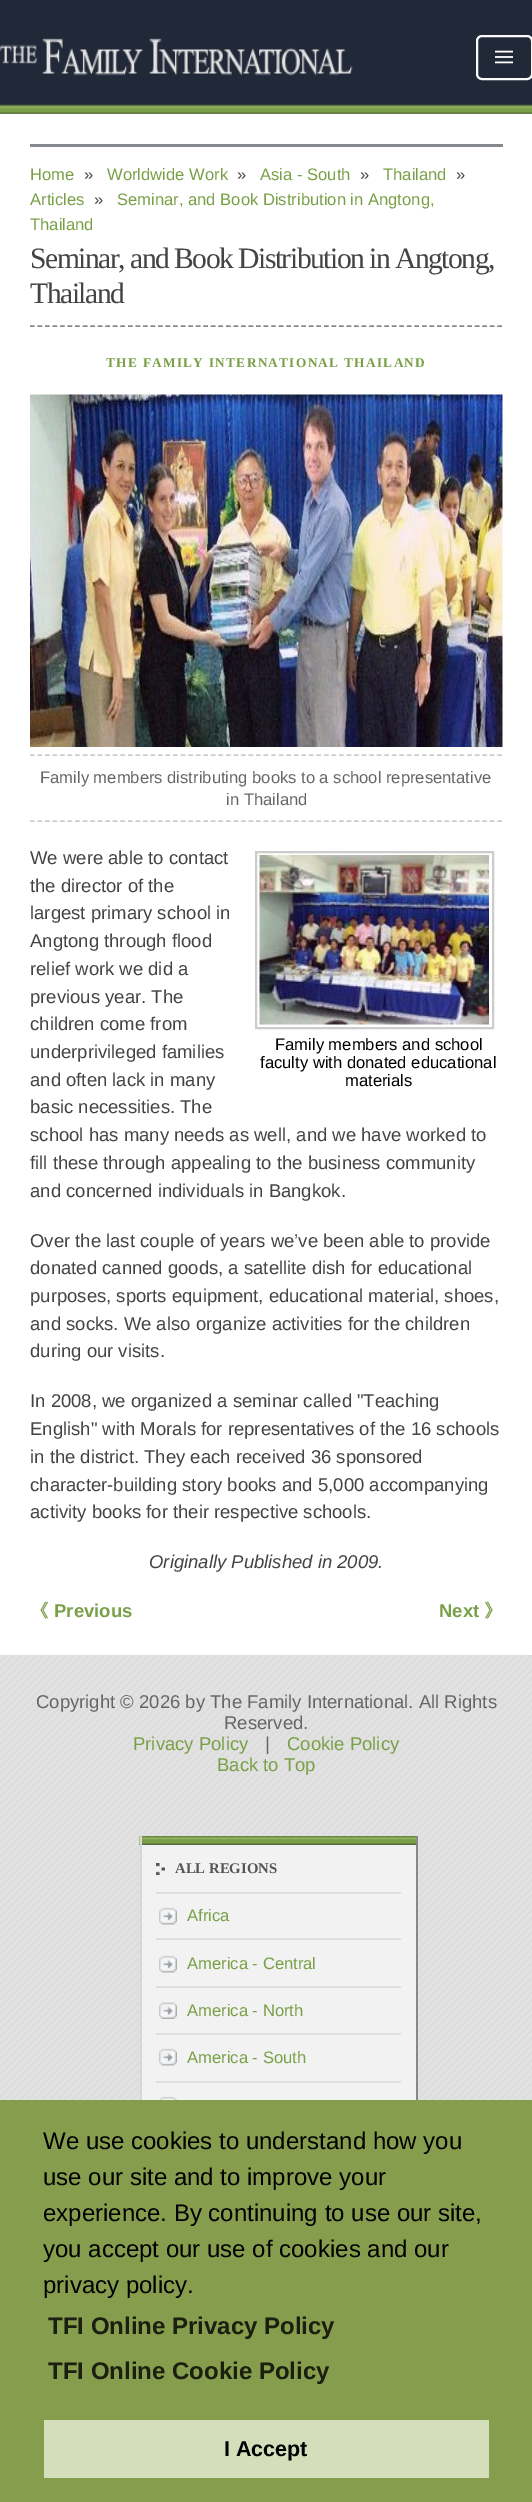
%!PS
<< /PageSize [532 2502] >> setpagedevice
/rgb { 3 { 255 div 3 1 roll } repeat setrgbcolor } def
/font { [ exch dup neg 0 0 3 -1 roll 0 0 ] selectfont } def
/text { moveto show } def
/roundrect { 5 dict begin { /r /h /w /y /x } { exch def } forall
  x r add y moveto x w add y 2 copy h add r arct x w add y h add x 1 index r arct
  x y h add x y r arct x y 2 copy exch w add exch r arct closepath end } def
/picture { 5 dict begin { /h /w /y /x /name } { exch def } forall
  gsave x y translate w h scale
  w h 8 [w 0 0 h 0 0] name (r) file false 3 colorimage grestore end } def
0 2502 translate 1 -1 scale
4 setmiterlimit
255 255 255 rgb
0 0 532 2502 rectfill
(img_01.rgb) 0 0 532 114 picture
(img_02.rgb) 0 38 353 38 picture
248 250 252 rgb
2 setlinewidth
477 36 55 43 5 roundrect stroke
(img_03.rgb) 495 50 18 14 picture
(img_04.rgb) 0 1655 532 445 picture
133 136 141 rgb
30 144 473 3 rectfill
1.5 setlinewidth
[4.5 3.04] 0 setdash
30 326 moveto 472.5 0 rlineto stroke
(img_05.rgb) 30 394 473 353 picture
204 204 204 rgb
30 755 moveto 472.5 0 rlineto stroke
30 821 moveto 472.5 0 rlineto stroke
2 setlinewidth
[] 0 setdash
256 852 237 176 rectstroke
(img_06.rgb) 259 855 230 170 picture
242 242 242 rgb
142 1845 274 255 rectfill
(img_07.rgb) 139 1836 277 9 picture
133 136 141 rgb
416 1836 2 264 rectfill
215 215 215 rgb
140 1836 2 264 rectfill
(img_08.rgb) 156 1863 9 12 picture
222 222 222 rgb
156 1892 245 2 rectfill
(img_09.rgb) 159 1907 18 18 picture
156 1938 245 2 rectfill
(img_09.rgb) 159 1955 18 18 picture
156 1986 245 2 rectfill
(img_10.rgb) 159 2002 18 17 picture
156 2033 245 2 rectfill
(img_09.rgb) 159 2048 18 18 picture
156 2081 245 2 rectfill
(img_11.rgb) 159 2096 18 4 picture
133 157 76 rgb
0 2100 532 402 rectfill
212 222 187 rgb
44 2420 445 58 rectfill
/LiberationSans-Regular 16.6 font
121 160 71 rgb
(Home) 30 180 text
68 68 68 rgb
(») 84 180 text
121 160 71 rgb
(Worldwide Work) 107 180 text
68 68 68 rgb
(») 237 180 text
121 160 71 rgb
(Asia - South) 260 180 text
68 68 68 rgb
(») 360 180 text
121 160 71 rgb
(Thailand) 383 180 text
68 68 68 rgb
(») 456 180 text
121 160 71 rgb
(Articles) 30 205 text
68 68 68 rgb
(») 94 205 text
121 160 71 rgb
(Seminar, and Book Distribution in Angtong,) 117 205 text
(Thailand) 30 230 text
/LiberationSerif-Regular 29.6 font
68 68 68 rgb
30 268 moveto -1.5 0 (Seminar, and Book Distribution in Angtong,) ashow
30 303 moveto -1.5 0 (Thailand) ashow
/LiberationSerif-Bold 13.3 font
121 160 71 rgb
106 367 moveto 1.3 0 (THE FAMILY INTERNATIONAL THAILAND) ashow
/LiberationSans-Regular 16.6 font
102 102 102 rgb
(Family members distributing books to a school representative) 40 783 text
(in Thailand) 226 805 text
/LiberationSans-Regular 18.5 font
68 68 68 rgb
(We were able to contact) 30 864 text
(the director of the) 30 892 text
(largest primary school in) 30 919 text
(Angtong through flood) 30 947 text
(relief work we did a) 30 975 text
(previous year. The) 30 1003 text
(children come from) 30 1030 text
(underprivileged families) 30 1058 text
(and often lack in many) 30 1086 text
(basic necessities. The) 30 1113 text
(school has many needs as well, and we have worked to) 30 1141 text
(fill these through appealing to the business community) 30 1169 text
(and concerned individuals in Bangkok.) 30 1197 text
/LiberationSans-Regular 16.6 font
0 0 0 rgb
(Family members and school) 275 1050 text
(faculty with donated educational) 260 1068 text
(materials) 345 1086 text
/LiberationSans-Regular 18.5 font
68 68 68 rgb
(Over the last couple of years we’ve been able to provide) 30 1247 text
(donated canned goods, a satellite dish for educational) 30 1274 text
(purposes, sports equipment, educational material, shoes,) 30 1302 text
(and socks. We also organize activities for the children) 30 1330 text
(during our visits.) 30 1357 text
(In 2008, we organized a seminar called "Teaching) 30 1407 text
(English" with Morals for representatives of the 16 schools) 30 1435 text
(in the district. They each received 36 sponsored) 30 1463 text
(character-building story books and 5,000 accompanying) 30 1491 text
(activity books for their respective schools.) 30 1518 text
/LiberationSans-Italic 18.5 font
(Originally Published in 2009.) 149 1568 text
/WenQuanYiZenHei-Bold 18.5 font
121 160 71 rgb
(《) 30 1617 text
/LiberationSans-Bold 18.5 font
(Previous) 54 1617 text
(Next) 439 1617 text
/WenQuanYiZenHei-Bold 18.5 font
(》) 484 1617 text
/LiberationSans-Regular 18.5 font
102 102 102 rgb
(Copyright © 2026 by The Family International. All Rights) 36 1708 text
(Reserved.) 224 1729 text
121 160 71 rgb
(Privacy Policy) 133 1750 text
102 102 102 rgb
(|) 265 1750 text
121 160 71 rgb
(Cookie Policy) 287 1750 text
(Back to Top) 217 1771 text
/LiberationSerif-Bold 14.75 font
85 85 85 rgb
(ALL REGIONS) 175 1873 text
/LiberationSans-Regular 16.6 font
121 160 71 rgb
(Africa) 187 1921 text
(America - Central) 187 1969 text
(America - North) 187 2016 text
(America - South) 187 2063 text
/LiberationSans-Regular 24 font
0 0 0 rgb
(We use cookies to understand how you) 43 2149 text
(use our site and to improve your) 43 2185 text
(experience. By continuing to use our site,) 43 2221 text
(you accept our use of cookies and our) 43 2257 text
(privacy policy.) 43 2293 text
/LiberationSans-Bold 24 font
27 31 15 rgb
(TFI Online Privacy Policy) 48 2334 text
(TFI Online Cookie Policy) 48 2379 text
/LiberationSans-Bold 21.5 font
0 0 0 rgb
(I Accept) 224 2456 text
showpage
